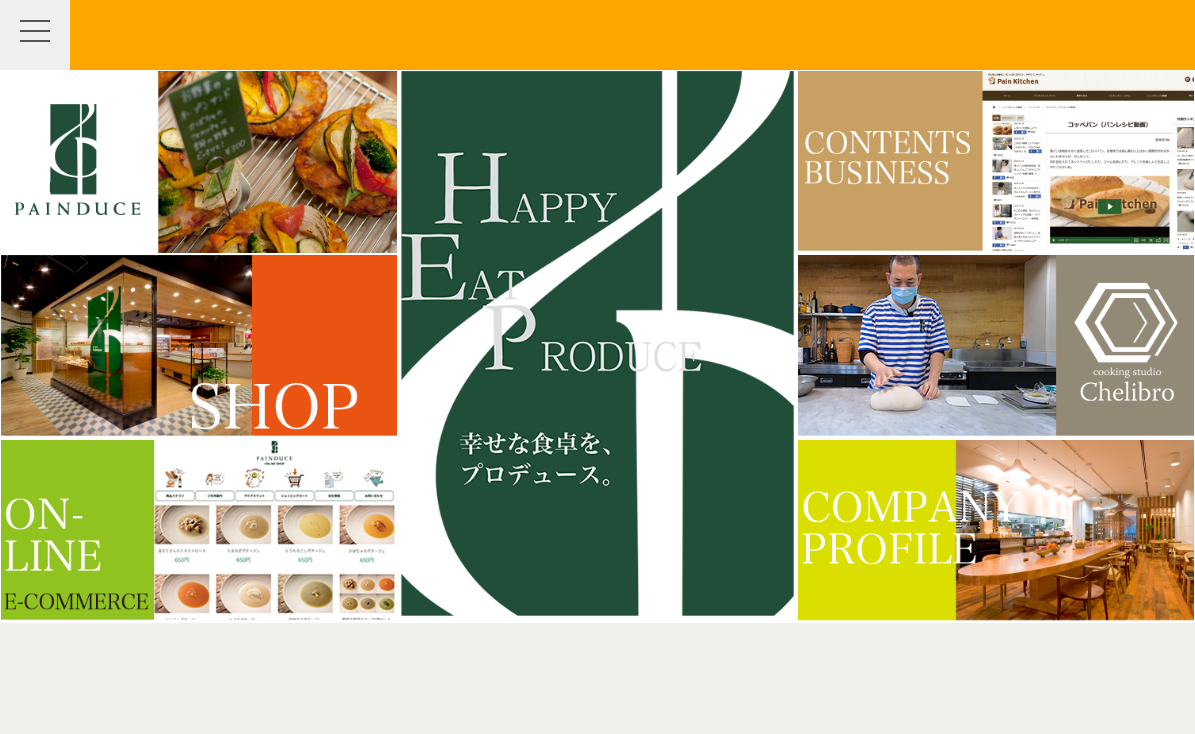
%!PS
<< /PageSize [1195 734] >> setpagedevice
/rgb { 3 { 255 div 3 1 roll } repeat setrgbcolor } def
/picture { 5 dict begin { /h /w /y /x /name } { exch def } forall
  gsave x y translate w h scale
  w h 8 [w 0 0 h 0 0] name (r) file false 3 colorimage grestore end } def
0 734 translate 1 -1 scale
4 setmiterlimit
255 255 255 rgb
0 0 1195 734 rectfill
255 165 0 rgb
70 0 1125 70 rectfill
239 239 239 rgb
0 0 70 70 rectfill
85 85 85 rgb
20 20 30 2 rectfill
20 30 30 2 rectfill
20 40 30 2 rectfill
(img_01.rgb) 15 71 382 182 picture
(img_02.rgb) 401 71 393 545 picture
(img_03.rgb) 798 71 396 181 picture
(img_04.rgb) 1 255 396 181 picture
(img_05.rgb) 798 255 396 181 picture
(img_06.rgb) 1 440 394 180 picture
(img_07.rgb) 798 440 396 181 picture
241 240 237 rgb
0 623 1195 111 rectfill
showpage
